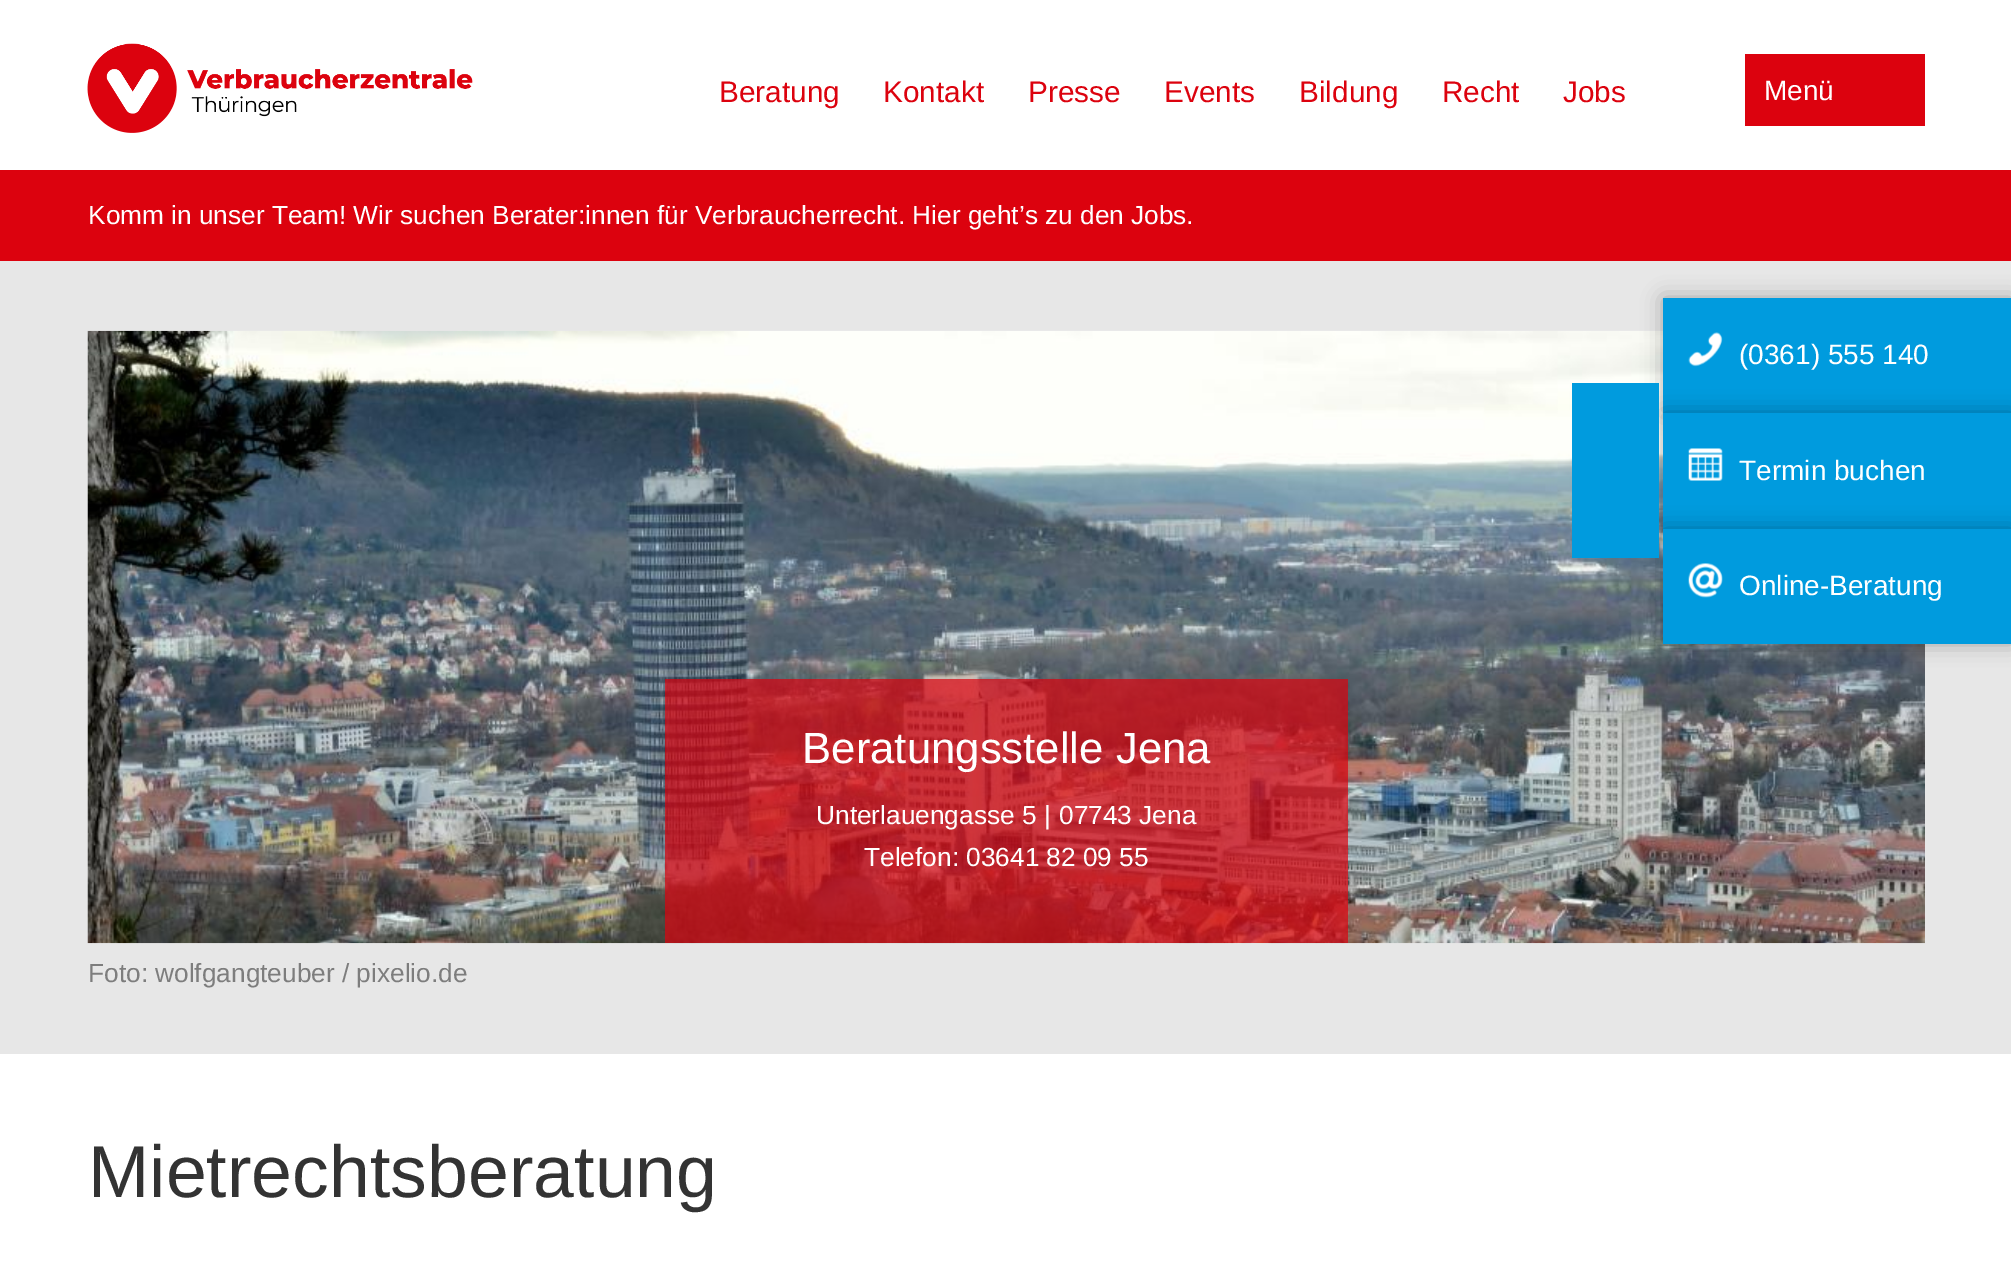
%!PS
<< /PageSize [2011 1272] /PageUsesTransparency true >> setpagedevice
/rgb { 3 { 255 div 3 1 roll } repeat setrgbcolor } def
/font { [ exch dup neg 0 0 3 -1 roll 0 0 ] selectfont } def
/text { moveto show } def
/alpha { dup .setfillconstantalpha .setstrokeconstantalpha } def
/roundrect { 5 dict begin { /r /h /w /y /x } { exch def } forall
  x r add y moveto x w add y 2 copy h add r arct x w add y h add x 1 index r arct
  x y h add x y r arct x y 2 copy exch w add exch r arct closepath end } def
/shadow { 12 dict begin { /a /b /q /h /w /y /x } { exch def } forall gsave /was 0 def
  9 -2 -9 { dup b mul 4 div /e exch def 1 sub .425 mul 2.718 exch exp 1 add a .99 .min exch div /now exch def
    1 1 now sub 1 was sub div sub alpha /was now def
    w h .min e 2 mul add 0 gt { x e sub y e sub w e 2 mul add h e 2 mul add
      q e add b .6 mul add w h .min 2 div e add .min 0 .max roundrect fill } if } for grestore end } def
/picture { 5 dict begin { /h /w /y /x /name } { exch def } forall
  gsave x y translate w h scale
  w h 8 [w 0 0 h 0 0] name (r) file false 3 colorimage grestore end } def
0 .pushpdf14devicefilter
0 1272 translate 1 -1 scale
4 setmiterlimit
255 255 255 rgb
0 0 2011 1272 rectfill
(img_01.rgb) 87 43 386 90 picture
220 2 14 rgb
1745 54 180 72 rectfill
0 170 2011 91 rectfill
231 231 231 rgb
0 261 2011 793 rectfill
(img_05.rgb) 87 330 1838 614 picture
0 0 0 rgb
1663 298 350 115 0 10.5 0.3 shadow
0 155 222 rgb
1663 298 348 115 rectfill
0 0 0 rgb
1663 413 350 116 0 10.5 0.3 shadow
0 155 222 rgb
1663 413 348 116 rectfill
0 0 0 rgb
1663 529 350 115 0 10.5 0.3 shadow
0 155 222 rgb
1572 383 87 175 rectfill
(img_02.rgb) 1688 332 35 35 picture
(img_03.rgb) 1688 448 35 33 picture
1663 529 348 115 rectfill
(img_04.rgb) 1688 563 35 35 picture
0.7 alpha
220 2 14 rgb
665 679 683 264 rectfill
/LiberationSans-Regular 29.75 font
1 alpha
(Beratung) 719 102 text
(Kontakt) 883 102 text
(Presse) 1028 102 text
(Events) 1164 102 text
(Bildung) 1299 102 text
(Recht) 1442 102 text
(Jobs) 1563 102 text
/LiberationSans-Regular 28 font
255 255 255 rgb
(Menü) 1764 100 text
/LiberationSans-Regular 26.25 font
(Komm in unser Team! Wir suchen Berater:innen für Verbraucherrecht. Hier geht’s zu den Jobs.) 88 224 text
/LiberationSans-Regular 28 font
(\(0361\) 555 140) 1739 364 text
(Termin buchen) 1739 480 text
(Online-Beratung) 1739 595 text
/LiberationSans-Regular 43.75 font
(Beratungsstelle Jena) 802 763 text
/LiberationSans-Regular 26.25 font
(Unterlauengasse 5 |) 816 824 text
(07743 Jena) 1059 824 text
(Telefon: 03641 82 09 55) 864 866 text
125 125 125 rgb
(Foto: wolfgangteuber / pixelio.de) 88 982 text
/LiberationSans-Regular 73.5 font
51 51 51 rgb
(Mietrechtsberatung) 88 1197 text
.poppdf14devicefilter showpage
